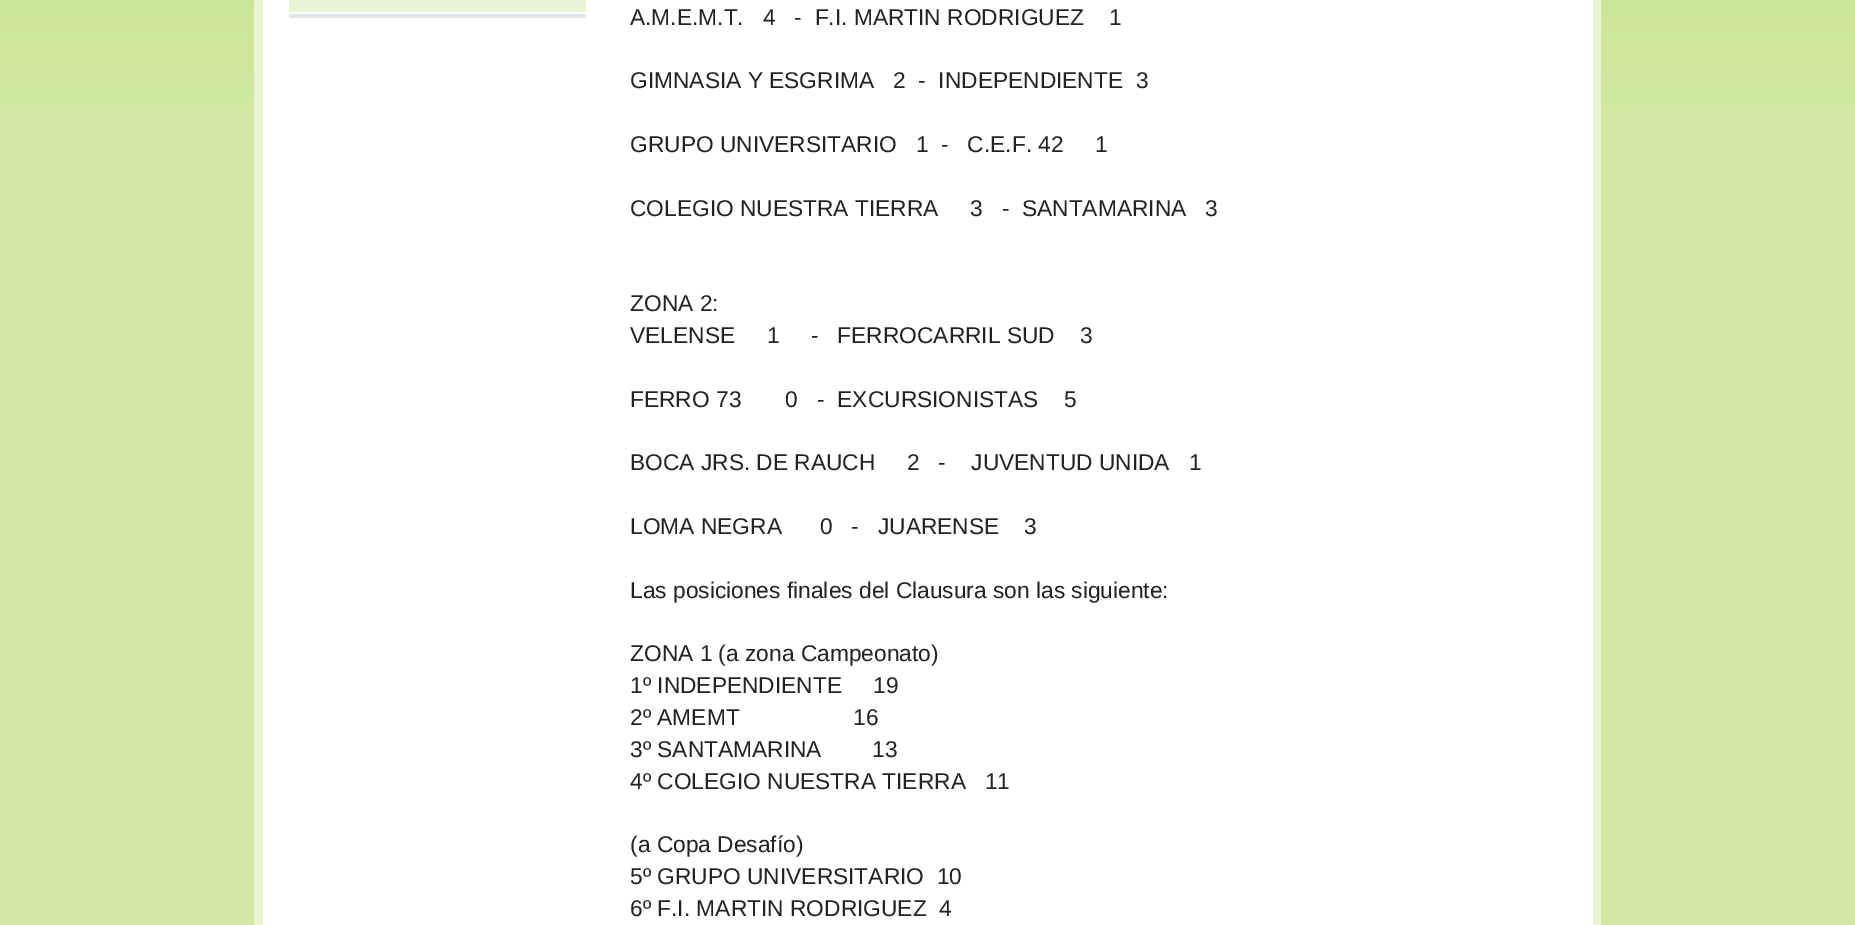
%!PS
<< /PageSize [1855 925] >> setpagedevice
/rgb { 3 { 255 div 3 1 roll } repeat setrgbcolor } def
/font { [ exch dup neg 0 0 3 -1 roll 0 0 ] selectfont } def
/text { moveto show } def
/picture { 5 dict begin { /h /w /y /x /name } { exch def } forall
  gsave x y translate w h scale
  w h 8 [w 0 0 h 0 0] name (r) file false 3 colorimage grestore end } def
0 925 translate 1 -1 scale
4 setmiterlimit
210 233 165 rgb
0 0 1855 925 rectfill
(img_01.rgb) 0 0 1855 111 picture
255 255 255 rgb
263 0 1330 925 rectfill
235 245 214 rgb
1593 0 8 925 rectfill
254 0 9 925 rectfill
226 229 232 rgb
289 14 297 4 rectfill
235 245 214 rgb
289 0 297 12 rectfill
/LiberationSans-Regular 22.75 font
34 34 34 rgb
(A.M.E.M.T.   4   -  F.I. MARTIN RODRIGUEZ    1) 630 25 text
(GIMNASIA Y ESGRIMA   2  -  INDEPENDIENTE  3) 630 88 text
(GRUPO UNIVERSITARIO   1  -   C.E.F. 42     1) 630 152 text
(COLEGIO NUESTRA TIERRA     3   -  SANTAMARINA   3) 630 216 text
(ZONA 2:) 630 311 text
(VELENSE     1     -   FERROCARRIL SUD    3) 630 343 text
(FERRO 73       0   -  EXCURSIONISTAS    5) 630 407 text
(BOCA JRS. DE RAUCH     2   -    JUVENTUD UNIDA   1) 630 470 text
(LOMA NEGRA      0   -   JUARENSE    3) 630 534 text
(Las posiciones finales del Clausura son las siguiente:) 630 598 text
(ZONA 1 \(a zona Campeonato\)) 630 661 text
(1º INDEPENDIENTE     19) 630 693 text
(2º AMEMT                  16) 630 725 text
(3º SANTAMARINA        13) 630 757 text
(4º COLEGIO NUESTRA TIERRA   11) 630 789 text
(\(a Copa Desafío\)) 630 852 text
(5º GRUPO UNIVERSITARIO  10) 630 884 text
(6º F.I. MARTIN RODRIGUEZ  4) 630 916 text
showpage
